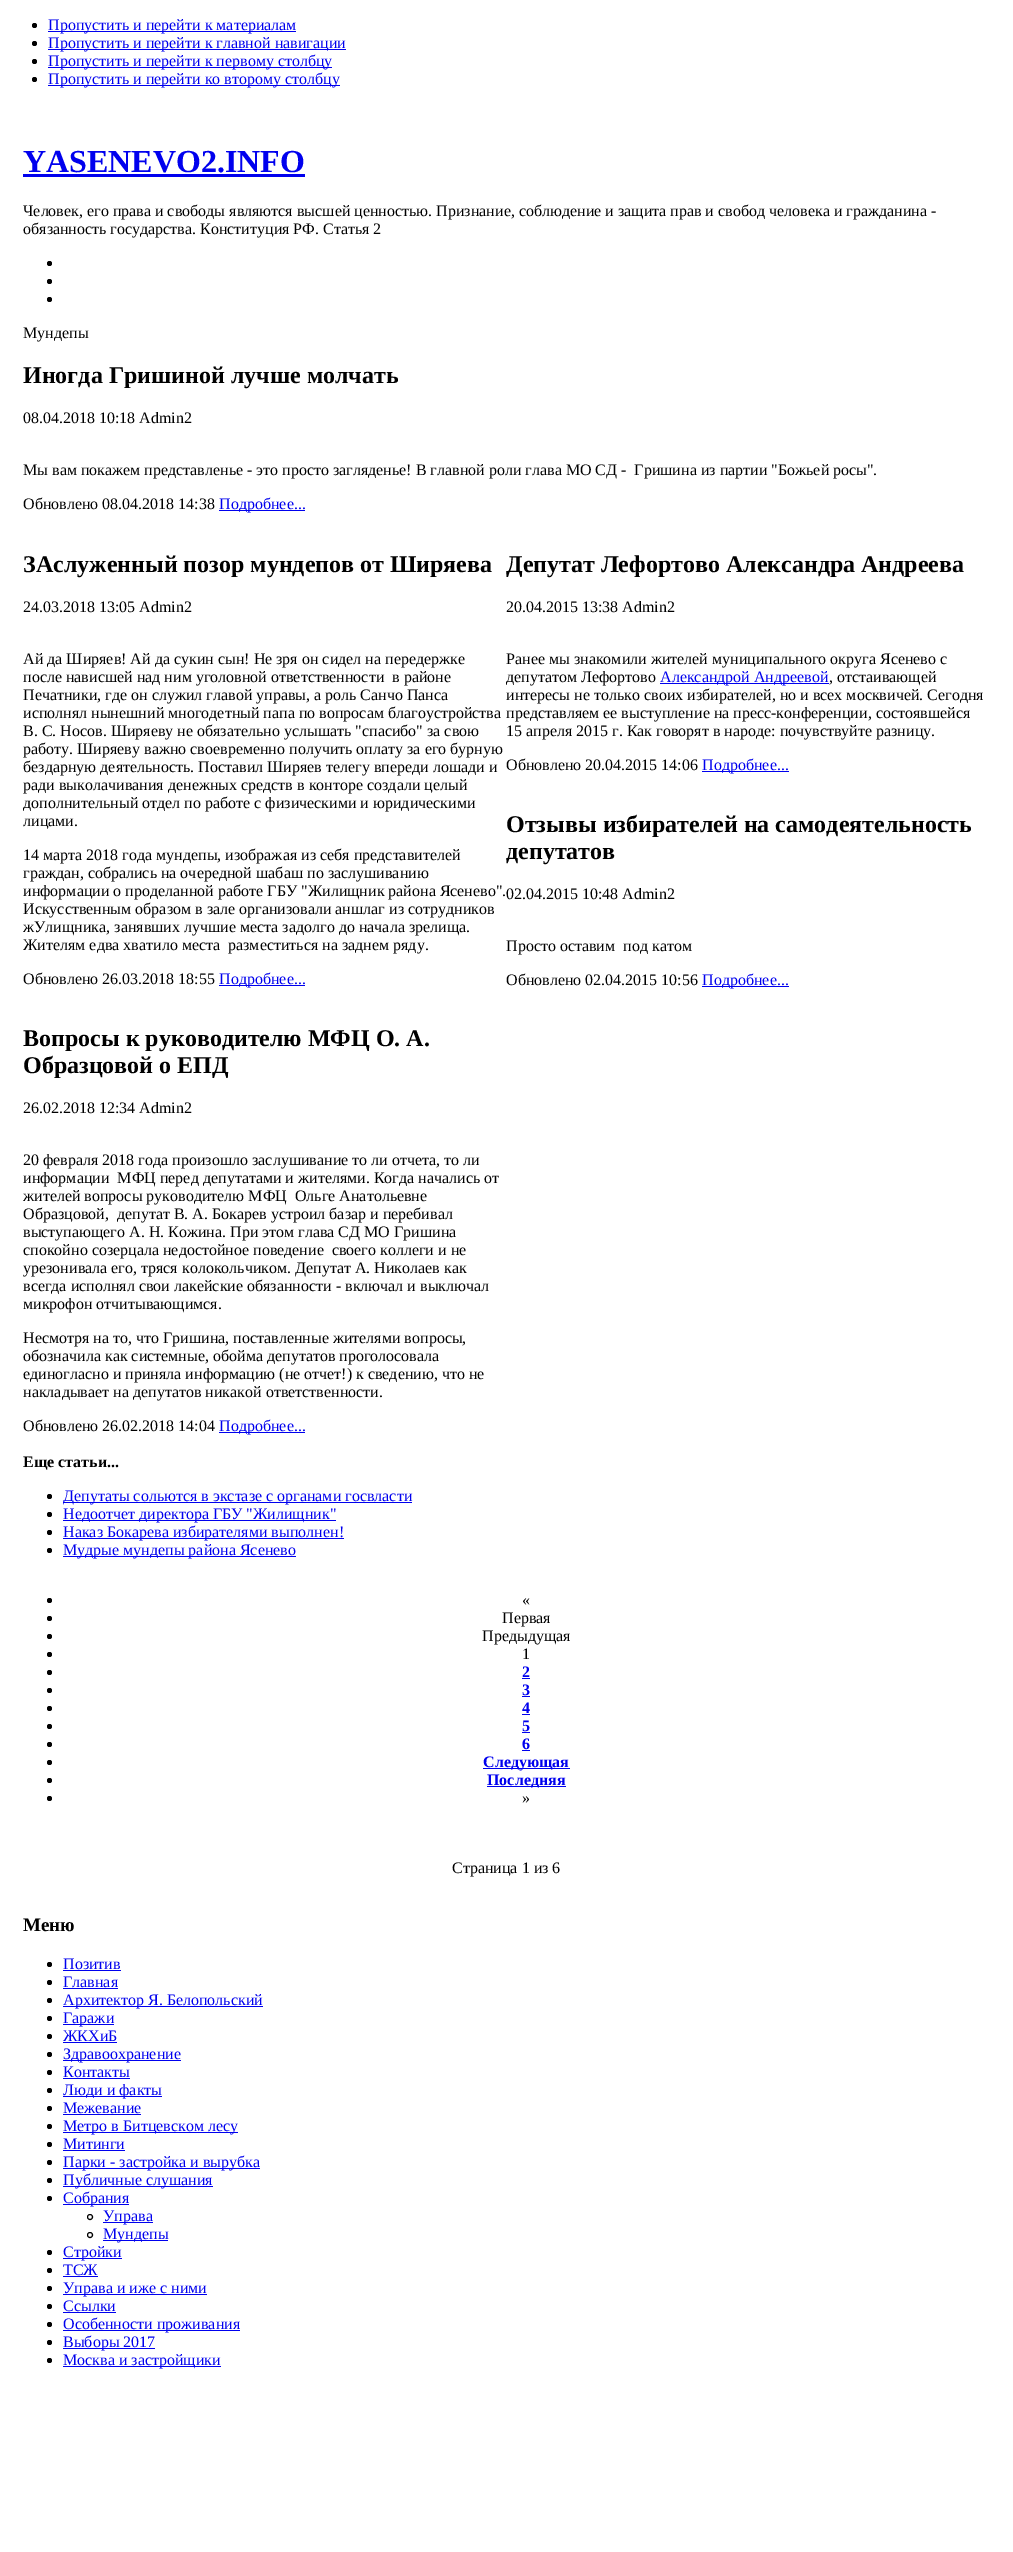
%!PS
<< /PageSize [1013 2552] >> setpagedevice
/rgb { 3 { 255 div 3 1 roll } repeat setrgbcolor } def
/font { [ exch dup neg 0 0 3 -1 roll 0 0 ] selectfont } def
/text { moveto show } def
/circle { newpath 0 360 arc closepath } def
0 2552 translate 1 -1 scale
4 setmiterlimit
255 255 255 rgb
0 0 1013 2552 rectfill
0 0 0 rgb
34.5 25.5 2.5 circle fill
0 0 238 rgb
48 31 248 1 rectfill
0 0 0 rgb
34.5 43.5 2.5 circle fill
0 0 238 rgb
48 49 298 1 rectfill
0 0 0 rgb
34.5 61.5 2.5 circle fill
0 0 238 rgb
48 67 284 1 rectfill
0 0 0 rgb
34.5 79.5 2.5 circle fill
0 0 238 rgb
48 85 292 1 rectfill
23 174 282 3 rectfill
0 0 0 rgb
49.5 263.5 2.5 circle fill
49.5 281.5 2.5 circle fill
49.5 299.5 2.5 circle fill
0 0 238 rgb
219 510 86 1 rectfill
219 985 86 1 rectfill
219 1432 86 1 rectfill
660 683 169 1 rectfill
702 771 87 1 rectfill
702 986 87 1 rectfill
0 0 0 rgb
49.5 1496.5 2.5 circle fill
0 0 238 rgb
63 1502 349 1 rectfill
0 0 0 rgb
49.5 1514.5 2.5 circle fill
0 0 238 rgb
63 1520 273 1 rectfill
0 0 0 rgb
49.5 1532.5 2.5 circle fill
0 0 238 rgb
63 1538 281 1 rectfill
0 0 0 rgb
49.5 1550.5 2.5 circle fill
0 0 238 rgb
63 1556 233 1 rectfill
0 0 0 rgb
49.5 1600.5 2.5 circle fill
49.5 1618.5 2.5 circle fill
49.5 1636.5 2.5 circle fill
49.5 1654.5 2.5 circle fill
49.5 1672.5 2.5 circle fill
0 0 238 rgb
522 1678 8 1 rectfill
0 0 0 rgb
49.5 1690.5 2.5 circle fill
0 0 238 rgb
522 1696 8 1 rectfill
0 0 0 rgb
49.5 1708.5 2.5 circle fill
0 0 238 rgb
522 1714 8 1 rectfill
0 0 0 rgb
49.5 1726.5 2.5 circle fill
0 0 238 rgb
522 1732 8 1 rectfill
0 0 0 rgb
49.5 1744.5 2.5 circle fill
0 0 238 rgb
522 1750 8 1 rectfill
0 0 0 rgb
49.5 1762.5 2.5 circle fill
0 0 238 rgb
483 1768 87 1 rectfill
0 0 0 rgb
49.5 1780.5 2.5 circle fill
0 0 238 rgb
487 1786 79 1 rectfill
0 0 0 rgb
49.5 1798.5 2.5 circle fill
49.5 1964.5 2.5 circle fill
0 0 238 rgb
63 1970 58 1 rectfill
0 0 0 rgb
49.5 1982.5 2.5 circle fill
0 0 238 rgb
63 1988 55 1 rectfill
0 0 0 rgb
49.5 2000.5 2.5 circle fill
0 0 238 rgb
63 2006 200 1 rectfill
0 0 0 rgb
49.5 2018.5 2.5 circle fill
0 0 238 rgb
63 2024 51 1 rectfill
0 0 0 rgb
49.5 2036.5 2.5 circle fill
0 0 238 rgb
63 2042 54 1 rectfill
0 0 0 rgb
49.5 2054.5 2.5 circle fill
0 0 238 rgb
63 2060 118 1 rectfill
0 0 0 rgb
49.5 2072.5 2.5 circle fill
0 0 238 rgb
63 2078 67 1 rectfill
0 0 0 rgb
49.5 2090.5 2.5 circle fill
0 0 238 rgb
63 2096 99 1 rectfill
0 0 0 rgb
49.5 2108.5 2.5 circle fill
0 0 238 rgb
63 2114 78 1 rectfill
0 0 0 rgb
49.5 2126.5 2.5 circle fill
0 0 238 rgb
63 2132 175 1 rectfill
0 0 0 rgb
49.5 2144.5 2.5 circle fill
0 0 238 rgb
63 2150 62 1 rectfill
0 0 0 rgb
49.5 2162.5 2.5 circle fill
0 0 238 rgb
63 2168 197 1 rectfill
0 0 0 rgb
49.5 2180.5 2.5 circle fill
0 0 238 rgb
63 2186 150 1 rectfill
0 0 0 rgb
49.5 2198.5 2.5 circle fill
0 0 238 rgb
63 2204 66 1 rectfill
0 0 0 rgb
90 2217 2.5 circle stroke
0 0 238 rgb
103 2222 50 1 rectfill
0 0 0 rgb
90 2235 2.5 circle stroke
0 0 238 rgb
103 2240 65 1 rectfill
0 0 0 rgb
49.5 2252.5 2.5 circle fill
0 0 238 rgb
63 2258 59 1 rectfill
0 0 0 rgb
49.5 2270.5 2.5 circle fill
0 0 238 rgb
63 2276 35 1 rectfill
0 0 0 rgb
49.5 2288.5 2.5 circle fill
0 0 238 rgb
63 2294 144 1 rectfill
0 0 0 rgb
49.5 2306.5 2.5 circle fill
0 0 238 rgb
63 2312 53 1 rectfill
0 0 0 rgb
49.5 2324.5 2.5 circle fill
0 0 238 rgb
63 2330 177 1 rectfill
0 0 0 rgb
49.5 2342.5 2.5 circle fill
0 0 238 rgb
63 2348 92 1 rectfill
0 0 0 rgb
49.5 2360.5 2.5 circle fill
0 0 238 rgb
63 2366 158 1 rectfill
/LiberationSerif-Regular 16 font
(Пропустить и перейти к материалам) 48 30 text
(Пропустить и перейти к главной навигации) 48 48 text
(Пропустить и перейти к первому столбцу) 48 66 text
(Пропустить и перейти ко второму столбцу) 48 84 text
/LiberationSerif-Bold 32 font
(YASENEVO2.INFO) 23 172 text
/LiberationSerif-Regular 16 font
0 0 0 rgb
(Человек, его права и свободы являются высшей ценностью. Признание, соблюдение и защита прав и свобод человека и гражданина -) 23 216 text
(обязанность государства. Конституция РФ. Статья 2) 23 234 text
(Мундепы) 23 338 text
/LiberationSerif-Bold 24 font
(Иногда Гришиной лучше молчать) 23 383 text
/LiberationSerif-Regular 16 font
(08.04.2018 10:18 Admin2) 23 423 text
(Мы вам покажем представленье - это просто загляденье! В главной роли глава МО СД -  Гришина из партии "Божьей росы".) 23 475 text
(Обновлено 08.04.2018 14:38) 23 509 text
0 0 238 rgb
(Подробнее...) 219 509 text
/LiberationSerif-Bold 24 font
0 0 0 rgb
(ЗАслуженный позор мундепов от Ширяева) 23 572 text
/LiberationSerif-Regular 16 font
(24.03.2018 13:05 Admin2) 23 612 text
(Ай да Ширяев! Ай да сукин сын! Не зря он сидел на передержке) 23 664 text
(после нависшей над ним уголовной ответственности  в районе) 23 682 text
(Печатники, где он служил главой управы, а роль Санчо Панса) 23 700 text
(исполнял нынешний многодетный папа по вопросам благоустройства) 23 718 text
(В. С. Носов. Ширяеву не обязательно услышать "спасибо" за свою) 23 736 text
(работу. Ширяеву важно своевременно получить оплату за его бурную) 23 754 text
(бездарную деятельность. Поставил Ширяев телегу впереди лошади и) 23 772 text
(ради выколачивания денежных средств в конторе создали целый) 23 790 text
(дополнительный отдел по работе с физическими и юридическими) 23 808 text
(лицами.) 23 826 text
(14 марта 2018 года мундепы, изображая из себя представителей) 23 860 text
(граждан, собрались на очередной шабаш по заслушиванию) 23 878 text
(информации о проделанной работе ГБУ "Жилищник района Ясенево".) 23 896 text
(Искусственным образом в зале организовали аншлаг из сотрудников) 23 914 text
(жУлищника, занявших лучшие места задолго до начала зрелища.) 23 932 text
(Жителям едва хватило места  разместиться на заднем ряду.) 23 950 text
(Обновлено 26.03.2018 18:55) 23 984 text
0 0 238 rgb
(Подробнее...) 219 984 text
/LiberationSerif-Bold 24 font
0 0 0 rgb
(Вопросы к руководителю МФЦ О. А.) 23 1046 text
(Образцовой о ЕПД) 23 1073 text
/LiberationSerif-Regular 16 font
(26.02.2018 12:34 Admin2) 23 1113 text
(20 февраля 2018 года произошло заслушивание то ли отчета, то ли) 23 1165 text
(информации  МФЦ перед депутатами и жителями. Когда начались от) 23 1183 text
(жителей вопросы руководителю МФЦ  Ольге Анатольевне) 23 1201 text
(Образцовой,  депутат В. А. Бокарев устроил базар и перебивал) 23 1219 text
(выступающего А. Н. Кожина. При этом глава СД МО Гришина) 23 1237 text
(спокойно созерцала недостойное поведение  своего коллеги и не) 23 1255 text
(урезонивала его, тряся колокольчиком. Депутат А. Николаев как) 23 1273 text
(всегда исполнял свои лакейские обязанности - включал и выключал) 23 1291 text
(микрофон отчитывающимся.) 23 1309 text
(Несмотря на то, что Гришина, поставленные жителями вопросы,) 23 1343 text
(обозначила как системные, обойма депутатов проголосовала) 23 1361 text
(единогласно и приняла информацию \(не отчет!\) к сведению, что не) 23 1379 text
(накладывает на депутатов никакой ответственности.) 23 1397 text
(Обновлено 26.02.2018 14:04) 23 1431 text
0 0 238 rgb
(Подробнее...) 219 1431 text
/LiberationSerif-Bold 24 font
0 0 0 rgb
(Депутат Лефортово Александра Андреева) 506 572 text
/LiberationSerif-Regular 16 font
(20.04.2015 13:38 Admin2) 506 612 text
(Ранее мы знакомили жителей муниципального округа Ясенево с) 506 664 text
(депутатом Лефортово) 506 682 text
0 0 238 rgb
(Александрой Андреевой) 660 682 text
0 0 0 rgb
(, отстаивающей) 829 682 text
(интересы не только своих избирателей, но и всех москвичей. Сегодня) 506 700 text
(представляем ее выступление на пресс-конференции, состоявшейся) 506 718 text
(15 апреля 2015 г. Как говорят в народе: почувствуйте разницу.) 506 736 text
(Обновлено 20.04.2015 14:06) 506 770 text
0 0 238 rgb
(Подробнее...) 702 770 text
/LiberationSerif-Bold 24 font
0 0 0 rgb
(Отзывы избирателей на самодеятельность) 506 832 text
(депутатов) 506 859 text
/LiberationSerif-Regular 16 font
(02.04.2015 10:48 Admin2) 506 899 text
(Просто оставим  под катом) 506 951 text
(Обновлено 02.04.2015 10:56) 506 985 text
0 0 238 rgb
(Подробнее...) 702 985 text
/LiberationSerif-Bold 16 font
0 0 0 rgb
(Еще статьи...) 23 1467 text
/LiberationSerif-Regular 16 font
0 0 238 rgb
(Депутаты сольются в экстазе с органами госвласти) 63 1501 text
(Недоотчет директора ГБУ "Жилищник") 63 1519 text
(Наказ Бокарева избирателями выполнен!) 63 1537 text
(Мудрые мундепы района Ясенево) 63 1555 text
0 0 0 rgb
(«) 522 1605 text
(Первая) 502 1623 text
(Предыдущая) 482 1641 text
(1) 522 1659 text
/LiberationSerif-Bold 16 font
0 0 238 rgb
(2) 522 1677 text
(3) 522 1695 text
(4) 522 1713 text
(5) 522 1731 text
(6) 522 1749 text
(Следующая) 483 1767 text
(Последняя) 487 1785 text
/LiberationSerif-Regular 16 font
0 0 0 rgb
(») 522 1803 text
(Страница 1 из 6) 452 1873 text
/LiberationSerif-Bold 19 font
(Меню) 23 1931 text
/LiberationSerif-Regular 16 font
0 0 238 rgb
(Позитив) 63 1969 text
(Главная) 63 1987 text
(Архитектор Я. Белопольский) 63 2005 text
(Гаражи) 63 2023 text
(ЖКХиБ) 63 2041 text
(Здравоохранение) 63 2059 text
(Контакты) 63 2077 text
(Люди и факты) 63 2095 text
(Межевание) 63 2113 text
(Метро в Битцевском лесу) 63 2131 text
(Митинги) 63 2149 text
(Парки - застройка и вырубка) 63 2167 text
(Публичные слушания) 63 2185 text
(Собрания) 63 2203 text
(Управа) 103 2221 text
(Мундепы) 103 2239 text
(Стройки) 63 2257 text
(ТСЖ) 63 2275 text
(Управа и иже с ними) 63 2293 text
(Ссылки) 63 2311 text
(Особенности проживания) 63 2329 text
(Выборы 2017) 63 2347 text
(Москва и застройщики) 63 2365 text
showpage
